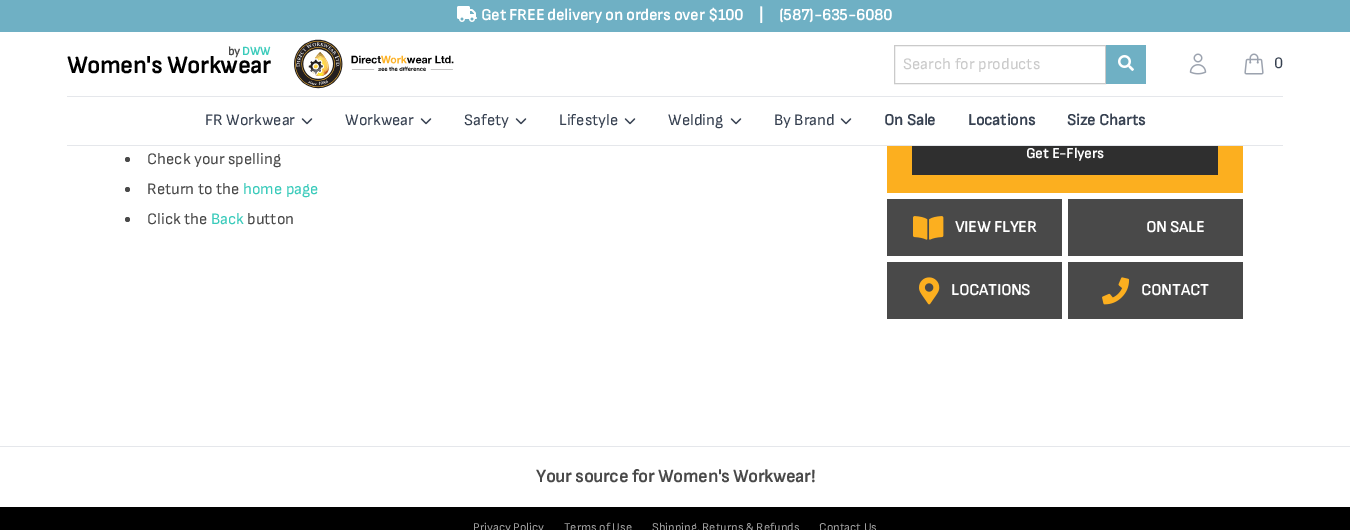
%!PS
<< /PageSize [1350 530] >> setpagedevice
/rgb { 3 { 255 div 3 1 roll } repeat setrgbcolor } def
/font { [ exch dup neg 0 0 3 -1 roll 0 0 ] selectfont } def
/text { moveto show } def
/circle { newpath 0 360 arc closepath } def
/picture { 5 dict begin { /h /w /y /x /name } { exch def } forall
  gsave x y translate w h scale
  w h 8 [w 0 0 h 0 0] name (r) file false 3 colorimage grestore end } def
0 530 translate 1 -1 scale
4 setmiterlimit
255 255 255 rgb
0 0 1350 530 rectfill
111 176 196 rgb
0 0 1350 32 rectfill
(img_01.rgb) 457 6 20 16 picture
229 231 235 rgb
67 96 1216 1 rectfill
(img_02.rgb) 294 39 160 50 picture
202 202 202 rgb
894.5 45.5 211 38 rectstroke
111 176 196 rgb
1106 45 40 39 rectfill
(img_03.rgb) 1118 55 16 16 picture
(img_04.rgb) 1189 53 18 22 picture
(img_05.rgb) 1244 53 20 22 picture
229 231 235 rgb
67 145 1216 1 rectfill
(img_06.rgb) 301 118 12 7 picture
(img_06.rgb) 420 118 12 7 picture
(img_06.rgb) 515 118 12 7 picture
(img_06.rgb) 624 118 12 7 picture
(img_06.rgb) 730 118 12 7 picture
(img_06.rgb) 840 118 12 7 picture
73 73 73 rgb
127.5 159.5 2.5 circle fill
127.5 189.5 2.5 circle fill
127.5 219.5 2.5 circle fill
252 175 31 rgb
887 146 356 47 rectfill
47 47 47 rgb
912 146 306 29 rectfill
73 73 73 rgb
887 199 175 57 rectfill
(img_07.rgb) 913 216 31 24 picture
1068 199 175 57 rectfill
887 262 175 57 rectfill
(img_08.rgb) 919 277 21 28 picture
1068 262 175 57 rectfill
(img_09.rgb) 1102 277 28 28 picture
229 231 235 rgb
0 446 1350 1 rectfill
0 0 0 rgb
0 507 1350 23 rectfill
/SofiaSans-Bold 16 font
255 255 255 rgb
(Get FREE delivery on orders over $100) 481 20 text
(|) 759 20 text
(\(587\)-635-6080) 779 20 text
/SofiaSans-Bold 12 font
73 73 73 rgb
(by) 228 55 text
58 203 187 rgb
(DWW) 242 55 text
/SofiaSans-Bold 24 font
0 0 0 rgb
(Women's Workwear) 67 73 text
/SofiaSans-Regular 16 font
202 202 202 rgb
(Search for products) 903 69 text
55 65 81 rgb
(0) 1274 68 text
(FR Workwear) 205 125 text
(Workwear) 345 125 text
(Safety) 464 125 text
(Lifestyle) 559 125 text
(Welding) 668 125 text
(By Brand) 774 125 text
/SofiaSans-Bold 16 font
(On Sale) 884 125 text
(Locations) 968 125 text
(Size Charts) 1067 125 text
/SofiaSans-Regular 16 font
73 73 73 rgb
(Check your spelling) 147 164 text
(Return to the) 147 194 text
58 203 187 rgb
(home page) 243 194 text
73 73 73 rgb
(Click the) 147 224 text
58 203 187 rgb
(Back) 211 224 text
73 73 73 rgb
(button) 247 224 text
/SofiaSans-Bold 14.5 font
255 255 255 rgb
(Get E-Flyers) 1026 158 text
/SofiaSans-Bold 16 font
(VIEW FLYER) 955 232 text
(ON SALE) 1146 232 text
(LOCATIONS) 951 295 text
(CONTACT) 1141 295 text
/SofiaSans-Bold 18 font
73 73 73 rgb
(Your source for Women's Workwear!) 536 482 text
/SofiaSans-Regular 12 font
158 158 158 rgb
(Privacy Policy) 473 531 text
(Terms of Use) 564 531 text
(Shipping, Returns & Refunds) 652 531 text
(Contact Us) 819 531 text
showpage
